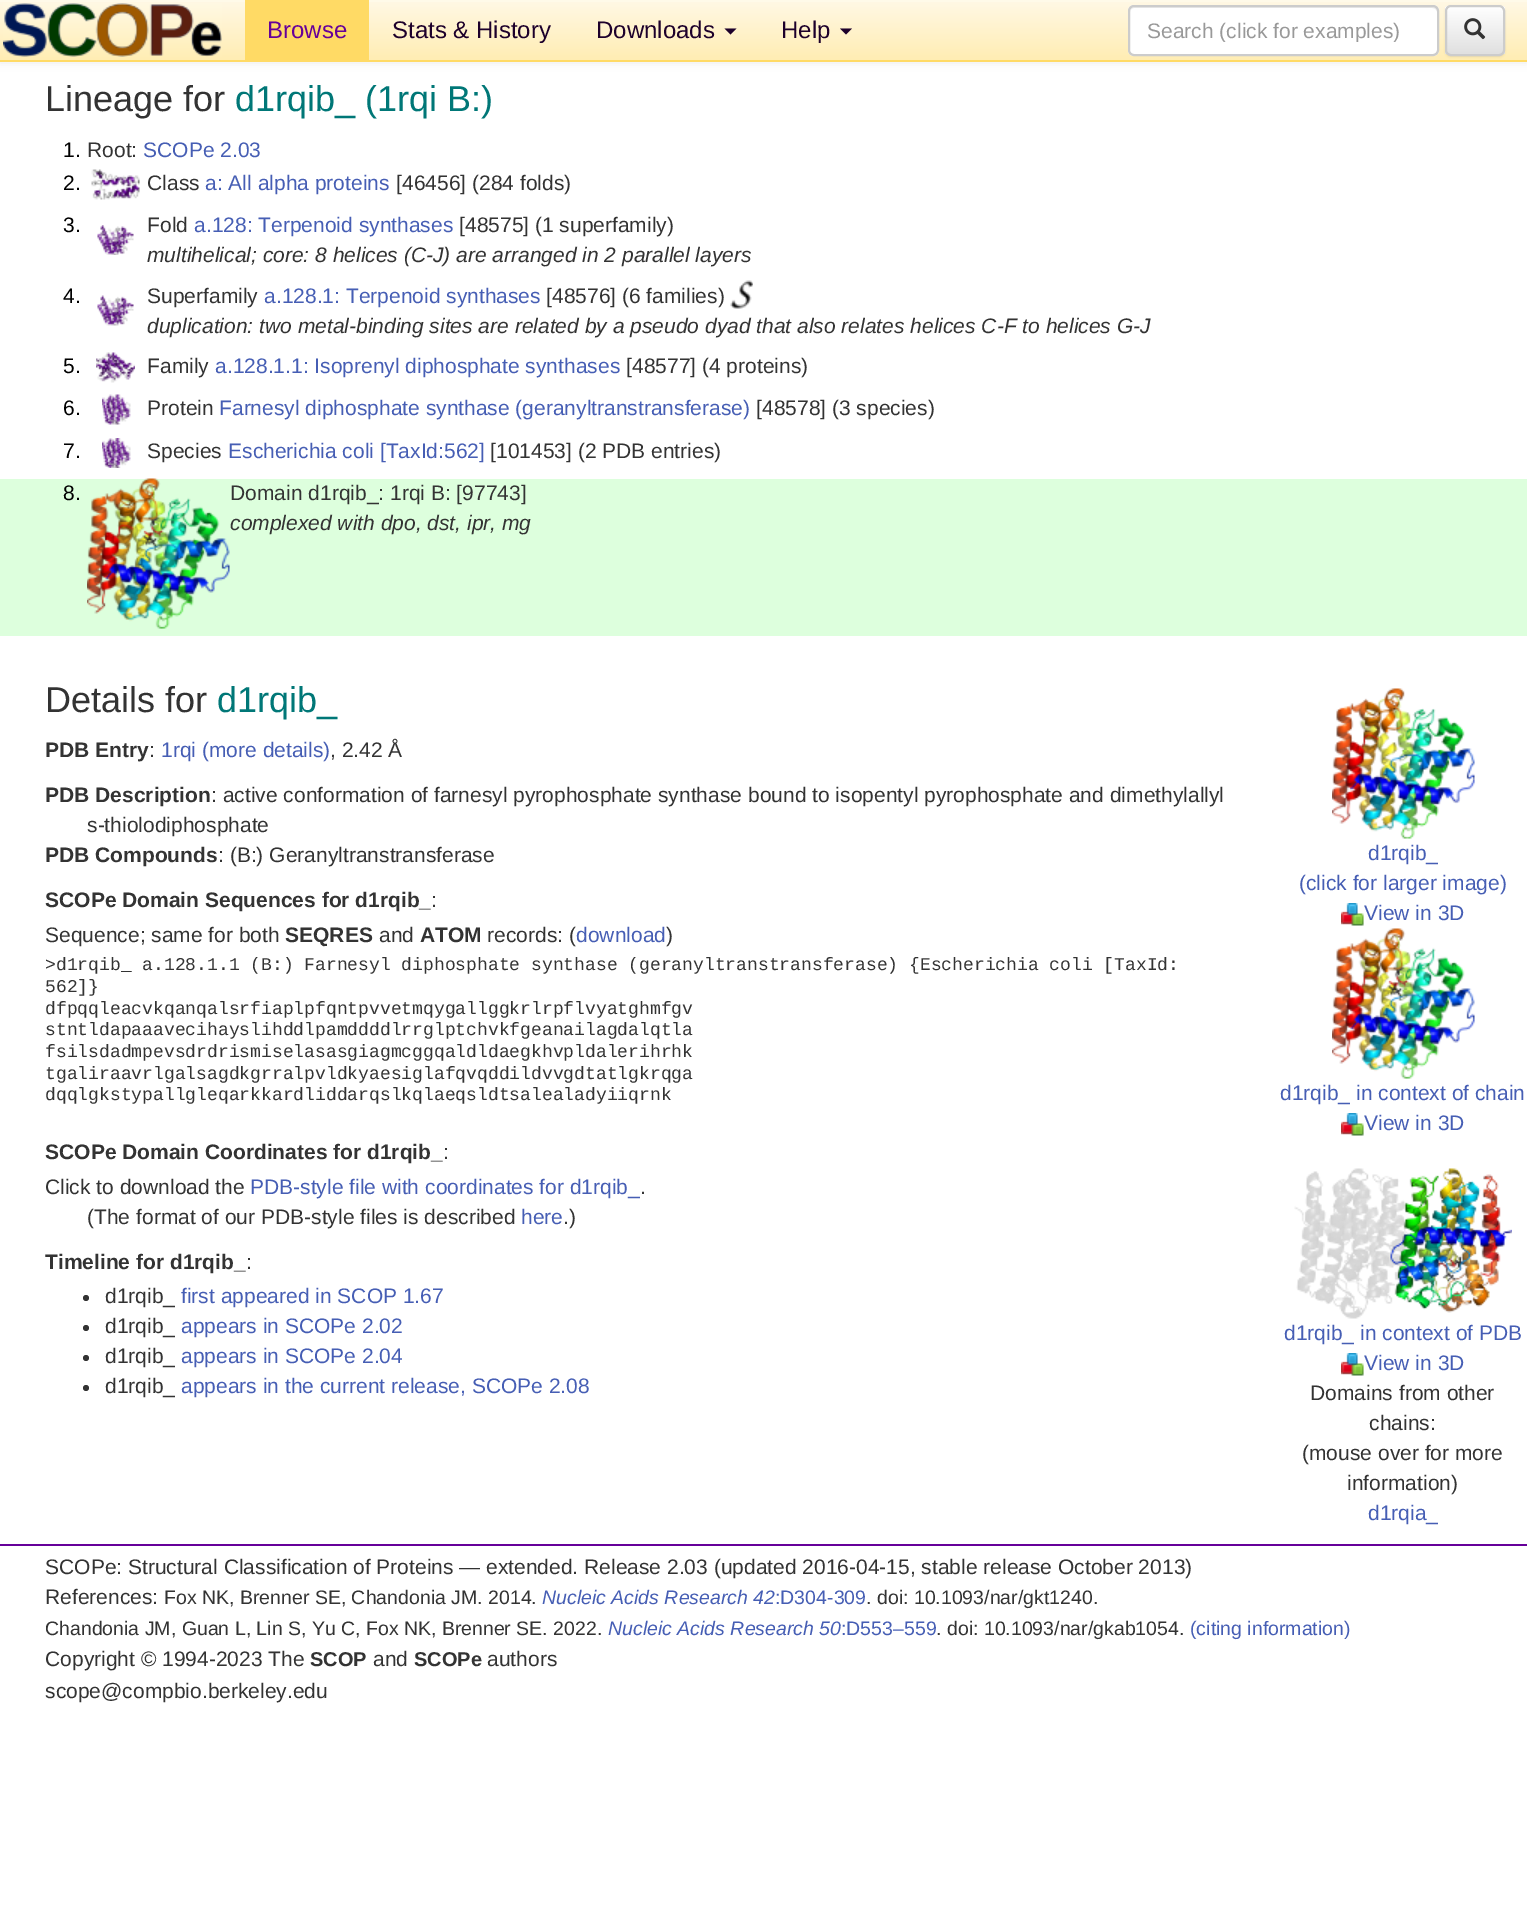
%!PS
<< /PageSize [1527 1907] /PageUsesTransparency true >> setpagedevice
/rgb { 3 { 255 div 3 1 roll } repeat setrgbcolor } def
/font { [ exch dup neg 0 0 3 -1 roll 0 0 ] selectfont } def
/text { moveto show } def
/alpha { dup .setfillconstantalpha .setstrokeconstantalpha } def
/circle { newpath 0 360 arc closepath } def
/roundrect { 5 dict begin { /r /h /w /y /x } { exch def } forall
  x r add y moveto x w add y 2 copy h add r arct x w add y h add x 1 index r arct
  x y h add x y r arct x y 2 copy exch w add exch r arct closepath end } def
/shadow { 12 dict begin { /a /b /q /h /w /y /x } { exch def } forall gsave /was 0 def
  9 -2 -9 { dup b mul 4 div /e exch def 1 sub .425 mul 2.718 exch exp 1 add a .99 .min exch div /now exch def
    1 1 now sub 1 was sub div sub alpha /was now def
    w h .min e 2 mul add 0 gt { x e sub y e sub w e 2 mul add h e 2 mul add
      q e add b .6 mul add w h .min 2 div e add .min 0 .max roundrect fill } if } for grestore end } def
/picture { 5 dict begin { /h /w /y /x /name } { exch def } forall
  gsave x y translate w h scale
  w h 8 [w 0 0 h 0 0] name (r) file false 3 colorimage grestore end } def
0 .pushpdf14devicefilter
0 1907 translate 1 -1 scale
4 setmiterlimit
255 255 255 rgb
0 0 1527 1907 rectfill
0 0 0 rgb
0 2 1527 61 0 4 0.07 shadow
gsave 0 2 moveto 1527 0 rlineto 0 58 rlineto -1527 0 rlineto closepath clip newpath
<< /ShadingType 2 /ColorSpace /DeviceRGB /Coords [764 0 764 60] /Extend [true true] /Function << /FunctionType 2 /Domain [0 1] /C0 [1 0.976 0.902] /C1 [1 0.929 0.702] /N 1 >> >> shfill grestore
255 250 233 rgb
0 0 1527 2 rectfill
255 218 101 rgb
0 60 1527 2 rectfill
(img_01.rgb) 3 3 219 54 picture
245 0 124 60 rectfill
29 0 43 rgb
724.5 28.5 moveto 12 0 rlineto -6 6 rlineto closepath fill
840 28.5 moveto 12 0 rlineto -6 6 rlineto closepath fill
255 255 255 rgb
1128 5 311 51 6 roundrect fill
236 236 236 rgb
1134 8 moveto 298 0 rlineto 3 0 5 2 5 4 rcurveto 0 -3 -2 -6 -5 -6 rcurveto -297 0 rlineto -3 0 -5 3 -5 6 rcurveto 0 -2 2 -4 4 -4 rcurveto closepath fill
204 204 204 rgb
2 setlinewidth
1129 6 309 49 5 roundrect stroke
0 0 0 rgb
1445 6 60 51 6 1 0.07 shadow
gsave
1445 5 60 51 6 roundrect clip newpath
gsave 1445 6 moveto 60 0 rlineto 0 48 rlineto -60 0 rlineto closepath clip newpath
<< /ShadingType 2 /ColorSpace /DeviceRGB /Coords [1475 6 1475 54] /Extend [true true] /Function << /FunctionType 2 /Domain [0 1] /C0 [1 1 1] /C1 [0.878 0.878 0.878] /N 1 >> >> shfill grestore
grestore
255 255 255 rgb
1450 8 moveto 48 0 rlineto 3 0 5 2 5 4 rcurveto 0 -8 -7 -6 -13 -6 rcurveto -31 0 rlineto -6 0 -13 -2 -13 6 rcurveto 0 -2 2 -4 4 -4 rcurveto closepath fill
204 204 204 rgb
1446 6 58 49 5 roundrect stroke
(img_02.rgb) 1464 18 22 22 picture
(img_03.rgb) 91 169 49 31 picture
(img_04.rgb) 97 225 37 30 picture
(img_05.rgb) 97 295 37 31 picture
(img_06.rgb) 730 280 23 29 picture
(img_07.rgb) 96 352 39 31 picture
(img_08.rgb) 102 394 29 31 picture
(img_09.rgb) 102 438 29 30 picture
221 255 221 rgb
0 479 1527 157 rectfill
(img_10.rgb) 87 478 143 151 picture
51 51 51 rgb
86 1298 3 circle fill
86 1328 3 circle fill
86 1358 3 circle fill
86 1388 3 circle fill
(img_11.rgb) 1332 688 143 151 picture
(img_12.rgb) 1341 903 23 23 picture
(img_13.rgb) 1332 928 143 151 picture
(img_12.rgb) 1341 1113 23 23 picture
(img_14.rgb) 1294 1168 218 151 picture
(img_12.rgb) 1341 1353 23 23 picture
102 0 153 rgb
0 1544 1527 2 rectfill
/LiberationSans-Regular 24 font
(Browse) 267 38 text
29 0 43 rgb
(Stats & History) 392 38 text
(Downloads) 596 38 text
(Help) 781 38 text
gsave
1148 18 271 24 rectclip
/LiberationSans-Regular 21 font
153 153 153 rgb
(Search \(click for examples\)) 1147 38 text
grestore
/LiberationSans-Regular 36 font
51 51 51 rgb
(Lineage for) 45 111 text
0 119 119 rgb
(d1rqib_ \(1rqi B:\)) 235 111 text
/LiberationSans-Regular 21 font
0 0 0 rgb
(1.) 63 157 text
51 51 51 rgb
(Root:) 87 157 text
70 94 180 rgb
(SCOPe 2.03) 143 157 text
0 0 0 rgb
(2.) 63 190 text
51 51 51 rgb
(Class) 147 190 text
70 94 180 rgb
(a: All alpha proteins) 205 190 text
51 51 51 rgb
([46456] \(284 folds\)) 396 190 text
0 0 0 rgb
(3.) 63 232 text
51 51 51 rgb
(Fold) 147 232 text
70 94 180 rgb
(a.128: Terpenoid synthases) 194 232 text
51 51 51 rgb
([48575] \(1 superfamily\)) 459 232 text
/LiberationSans-Italic 21 font
(multihelical; core: 8 helices \(C-J\) are arranged in 2 parallel layers) 147 262 text
/LiberationSans-Regular 21 font
0 0 0 rgb
(4.) 63 303 text
51 51 51 rgb
(Superfamily) 147 303 text
70 94 180 rgb
(a.128.1: Terpenoid synthases) 264 303 text
51 51 51 rgb
([48576] \(6 families\)) 546 303 text
/LiberationSans-Italic 21 font
(duplication: two metal-binding sites are related by a pseudo dyad that also relates helices C-F to helices G-J) 147 333 text
/LiberationSans-Regular 21 font
0 0 0 rgb
(5.) 63 373 text
51 51 51 rgb
(Family) 147 373 text
70 94 180 rgb
(a.128.1.1: Isoprenyl diphosphate synthases) 215 373 text
51 51 51 rgb
([48577] \(4 proteins\)) 626 373 text
0 0 0 rgb
(6.) 63 415 text
51 51 51 rgb
(Protein) 147 415 text
70 94 180 rgb
(Farnesyl diphosphate synthase \(geranyltranstransferase\)) 219 415 text
51 51 51 rgb
([48578] \(3 species\)) 756 415 text
0 0 0 rgb
(7.) 63 458 text
51 51 51 rgb
(Species) 147 458 text
70 94 180 rgb
(Escherichia coli [TaxId:562]) 228 458 text
51 51 51 rgb
([101453] \(2 PDB entries\)) 490 458 text
0 0 0 rgb
(8.) 63 500 text
51 51 51 rgb
(Domain d1rqib_: 1rqi B: [97743]) 230 500 text
/LiberationSans-Italic 21 font
(complexed with dpo, dst, ipr, mg) 230 530 text
/LiberationSans-Regular 36 font
(Details for) 45 712 text
0 119 119 rgb
(d1rqib_) 217 712 text
/LiberationSans-Bold 21 font
51 51 51 rgb
(PDB Entry) 45 757 text
/LiberationSans-Regular 21 font
(:) 149 757 text
70 94 180 rgb
(1rqi \(more details\)) 161 757 text
51 51 51 rgb
(, 2.42 Å) 330 757 text
/LiberationSans-Bold 21 font
(PDB Description) 45 802 text
/LiberationSans-Regular 21 font
(: active conformation of farnesyl pyrophosphate synthase bound to isopentyl pyrophosphate and dimethylallyl) 211 802 text
(s-thiolodiphosphate) 87 832 text
/LiberationSans-Bold 21 font
(PDB Compounds) 45 862 text
/LiberationSans-Regular 21 font
(: \(B:\) Geranyltranstransferase) 218 862 text
/LiberationSans-Bold 21 font
(SCOPe Domain Sequences for d1rqib_) 45 907 text
/LiberationSans-Regular 21 font
(:) 431 907 text
(Sequence; same for both) 45 942 text
/LiberationSans-Bold 21 font
(SEQRES) 285 942 text
/LiberationSans-Regular 21 font
(and) 379 942 text
/LiberationSans-Bold 21 font
(ATOM) 420 942 text
/LiberationSans-Regular 21 font
(records: \() 487 942 text
70 94 180 rgb
(download) 576 942 text
51 51 51 rgb
(\)) 666 942 text
/LiberationMono-Regular 18 font
(>d1rqib_ a.128.1.1 \(B:\) Farnesyl diphosphate synthase \(geranyltranstransferase\) {Escherichia coli [TaxId:) 45 970 text
(562]}) 45 992 text
(dfpqqleacvkqanqalsrfiaplpfqntpvvetmqygallggkrlrpflvyatghmfgv) 45 1014 text
(stntldapaaavecihayslihddlpamddddlrrglptchvkfgeanailagdalqtla) 45 1035 text
(fsilsdadmpevsdrdrismiselasasgiagmcggqaldldaegkhvpldalerihrhk) 45 1057 text
(tgaliraavrlgalsagdkgrralpvldkyaesiglafqvqddildvvgdtatlgkrqga) 45 1079 text
(dqqlgkstypallgleqarkkardliddarqslkqlaeqsldtsalealadyiiqrnk) 45 1100 text
/LiberationSans-Bold 21 font
(SCOPe Domain Coordinates for d1rqib_) 45 1159 text
/LiberationSans-Regular 21 font
(:) 443 1159 text
(Click to download the) 45 1194 text
70 94 180 rgb
(PDB-style file with coordinates for d1rqib_) 250 1194 text
51 51 51 rgb
(.) 640 1194 text
(\(The format of our PDB-style files is described) 87 1224 text
70 94 180 rgb
(here) 521 1224 text
51 51 51 rgb
(.\)) 563 1224 text
/LiberationSans-Bold 21 font
(Timeline for d1rqib_) 45 1269 text
/LiberationSans-Regular 21 font
(:) 246 1269 text
(d1rqib_) 105 1303 text
70 94 180 rgb
(first appeared in SCOP 1.67) 181 1303 text
51 51 51 rgb
(d1rqib_) 105 1333 text
70 94 180 rgb
(appears in SCOPe 2.02) 181 1333 text
51 51 51 rgb
(d1rqib_) 105 1363 text
70 94 180 rgb
(appears in SCOPe 2.04) 181 1363 text
51 51 51 rgb
(d1rqib_) 105 1393 text
70 94 180 rgb
(appears in the current release, SCOPe 2.08) 181 1393 text
(d1rqib_) 1368 860 text
(\(click for larger image\)) 1299 890 text
(View in 3D) 1364 920 text
(d1rqib_ in context of chain) 1280 1100 text
(View in 3D) 1364 1130 text
(d1rqib_ in context of PDB) 1284 1340 text
(View in 3D) 1364 1370 text
51 51 51 rgb
(Domains from other) 1310 1400 text
(chains:) 1369 1430 text
(\(mouse over for more) 1302 1460 text
(information\)) 1347 1490 text
70 94 180 rgb
(d1rqia_) 1368 1520 text
51 51 51 rgb
(SCOPe: Structural Classification of Proteins — extended. Release 2.03 \(updated 2016-04-15, stable release October 2013\)) 45 1574 text
(References:) 45 1604 text
/LiberationSans-Regular 19.5 font
(Fox NK, Brenner SE, Chandonia JM. 2014.) 164 1604 text
/LiberationSans-Italic 19.5 font
70 94 180 rgb
(Nucleic Acids Research 42) 542 1604 text
/LiberationSans-Regular 19.5 font
(:D304-309) 775 1604 text
51 51 51 rgb
(. doi: 10.1093/nar/gkt1240.) 866 1604 text
(Chandonia JM, Guan L, Lin S, Yu C, Fox NK, Brenner SE. 2022.) 45 1635 text
/LiberationSans-Italic 19.5 font
70 94 180 rgb
(Nucleic Acids Research 50) 608 1635 text
/LiberationSans-Regular 19.5 font
(:D553–559) 841 1635 text
51 51 51 rgb
(. doi: 10.1093/nar/gkab1054.) 936 1635 text
70 94 180 rgb
(\(citing information\)) 1190 1635 text
/LiberationSans-Regular 21 font
51 51 51 rgb
(Copyright © 1994-2023 The) 45 1666 text
/LiberationSans-Bold 20 font
(SCOP) 310 1666 text
/LiberationSans-Regular 21 font
(and) 373 1666 text
/LiberationSans-Bold 20 font
(SCOPe) 414 1666 text
/LiberationSans-Regular 21 font
(authors) 487 1666 text
(scope@compbio.berkeley.edu) 45 1698 text
.poppdf14devicefilter showpage
